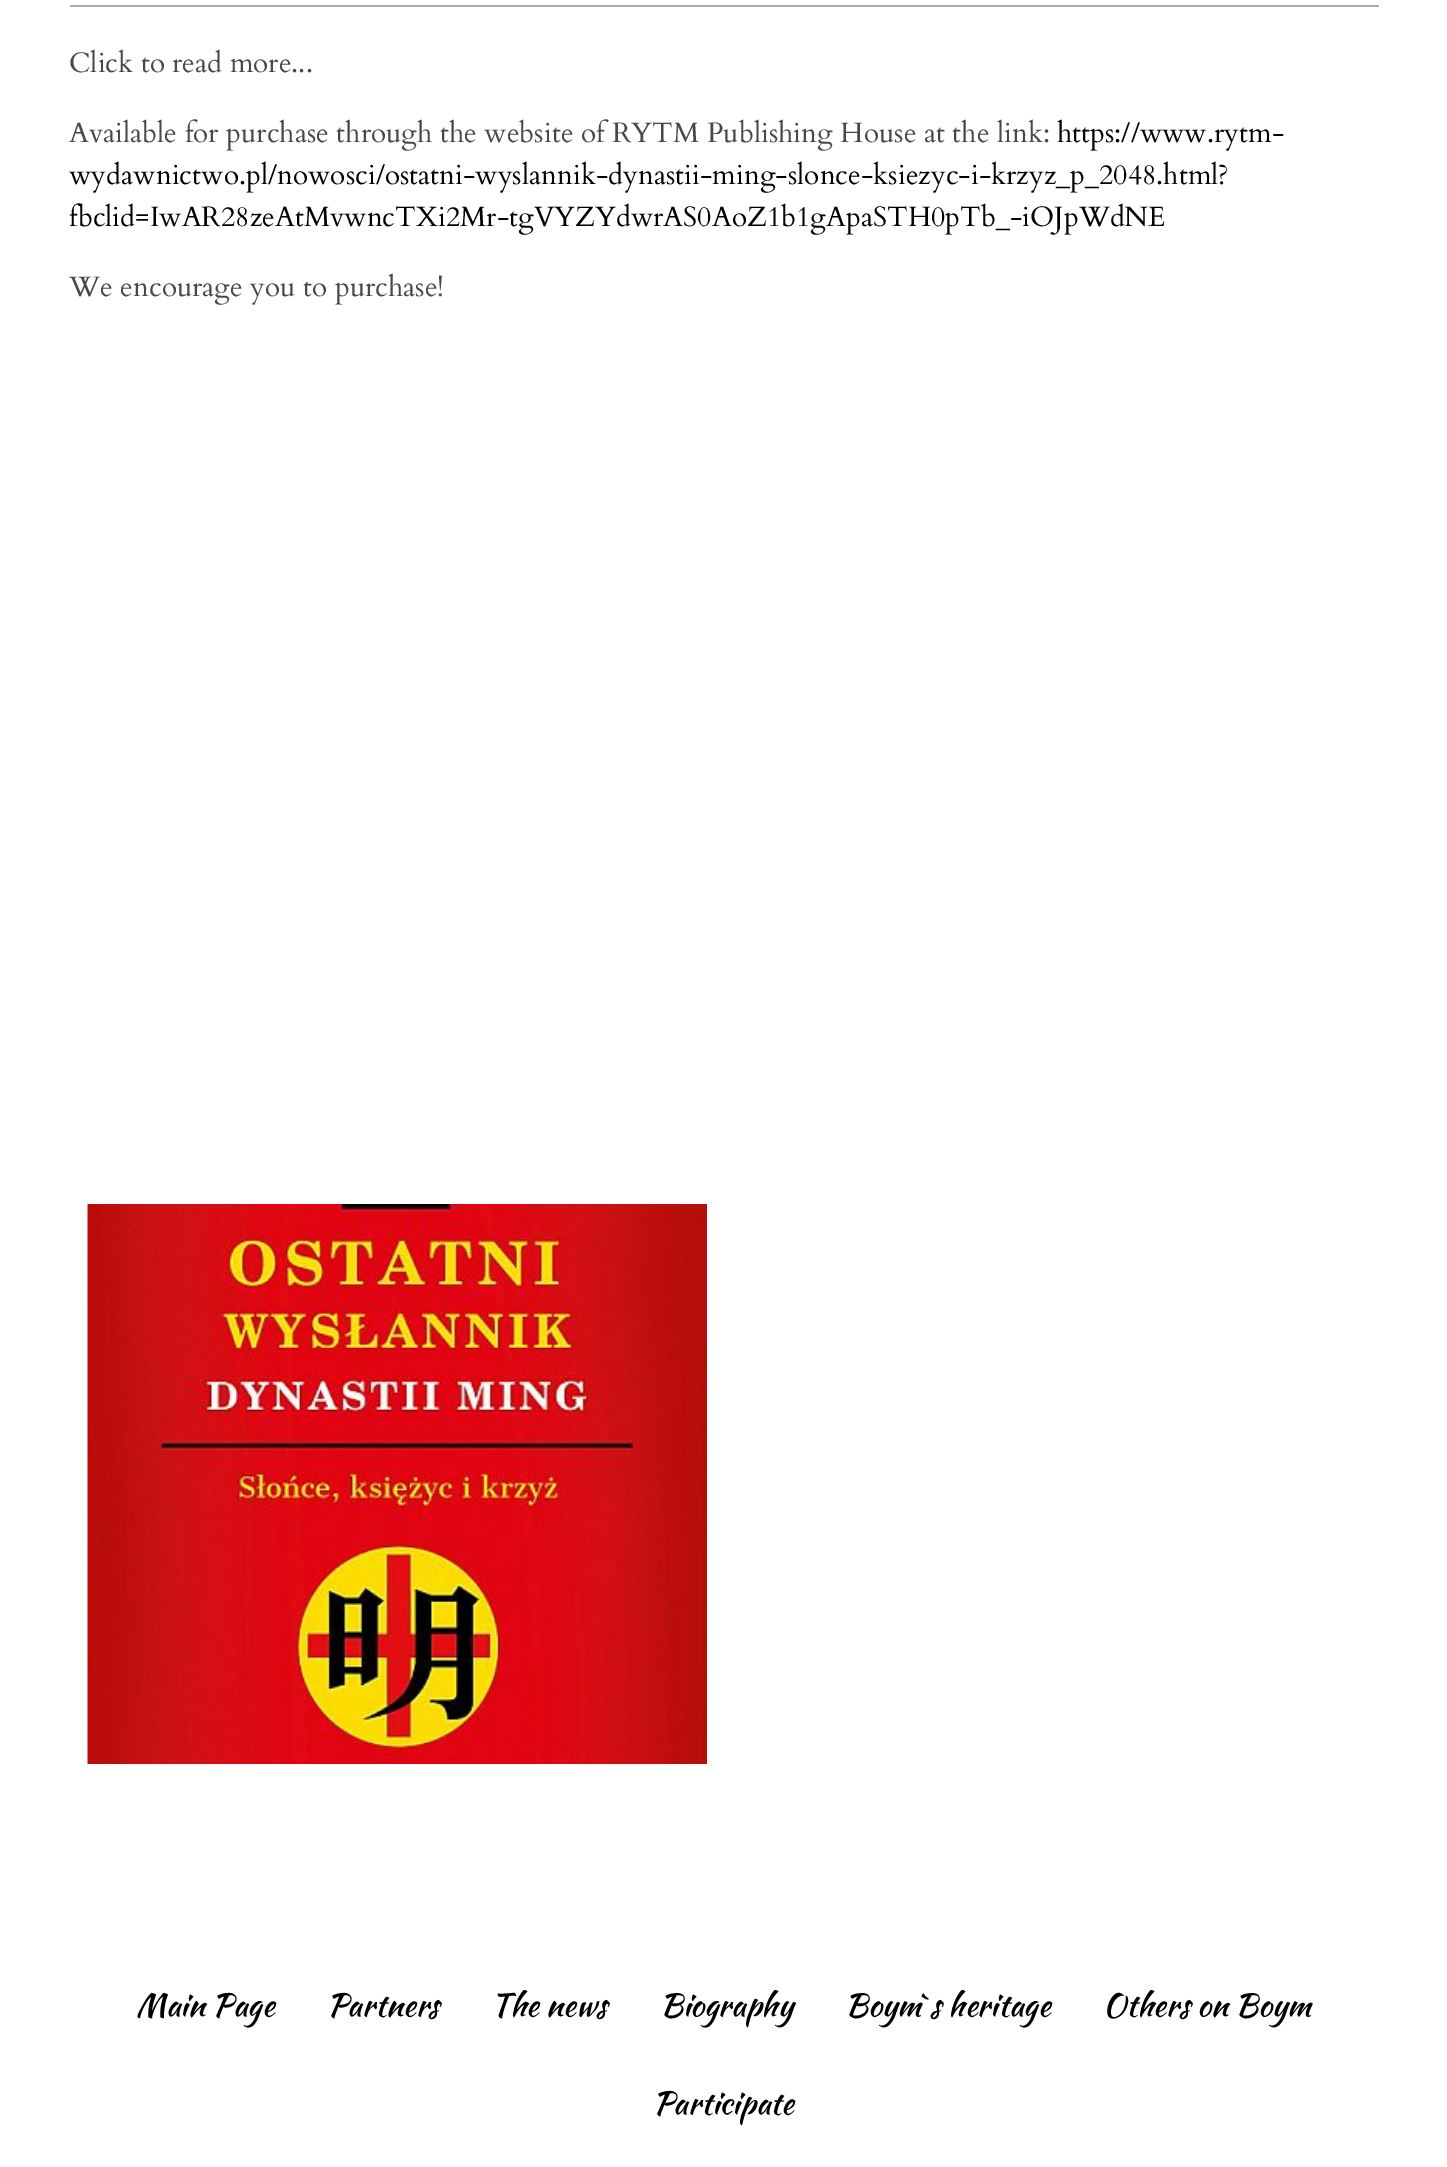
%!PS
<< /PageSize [1447 2167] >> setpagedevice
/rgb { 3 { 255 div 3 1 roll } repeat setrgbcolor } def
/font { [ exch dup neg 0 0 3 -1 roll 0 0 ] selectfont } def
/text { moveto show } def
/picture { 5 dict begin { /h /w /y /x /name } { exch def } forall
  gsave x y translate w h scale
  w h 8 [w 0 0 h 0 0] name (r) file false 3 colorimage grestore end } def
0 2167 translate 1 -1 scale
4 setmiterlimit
255 255 255 rgb
0 0 1447 2167 rectfill
164 174 172 rgb
70 5 1309 2 rectfill
(img_01.rgb) 87 1204 620 560 picture
/Cardo-Regular 28 font
72 72 72 rgb
(Click to read more...) 69 72 text
(Available for purchase through the website of RYTM Publishing House at the link:) 69 142 text
0 0 0 rgb
(https://www.rytm-) 1057 142 text
(wydawnictwo.pl/nowosci/ostatni-wyslannik-dynastii-ming-slonce-ksiezyc-i-krzyz_p_2048.html?) 69 184 text
(fbclid=IwAR28zeAtMvwncTXi2Mr-tgVYZYdwrAS0AoZ1b1gApaSTH0pTb_-iOJpWdNE) 69 226 text
72 72 72 rgb
(We encourage you to purchase!) 69 296 text
/KaushanScript-Regular 31.5 font
0 0 0 rgb
(Main Page) 136 2016 text
(Partners) 327 2016 text
(The news) 491 2016 text
(Biography) 660 2016 text
(Boym`s heritage) 845 2016 text
(Others on Boym) 1103 2016 text
(Participate) 653 2114 text
showpage
